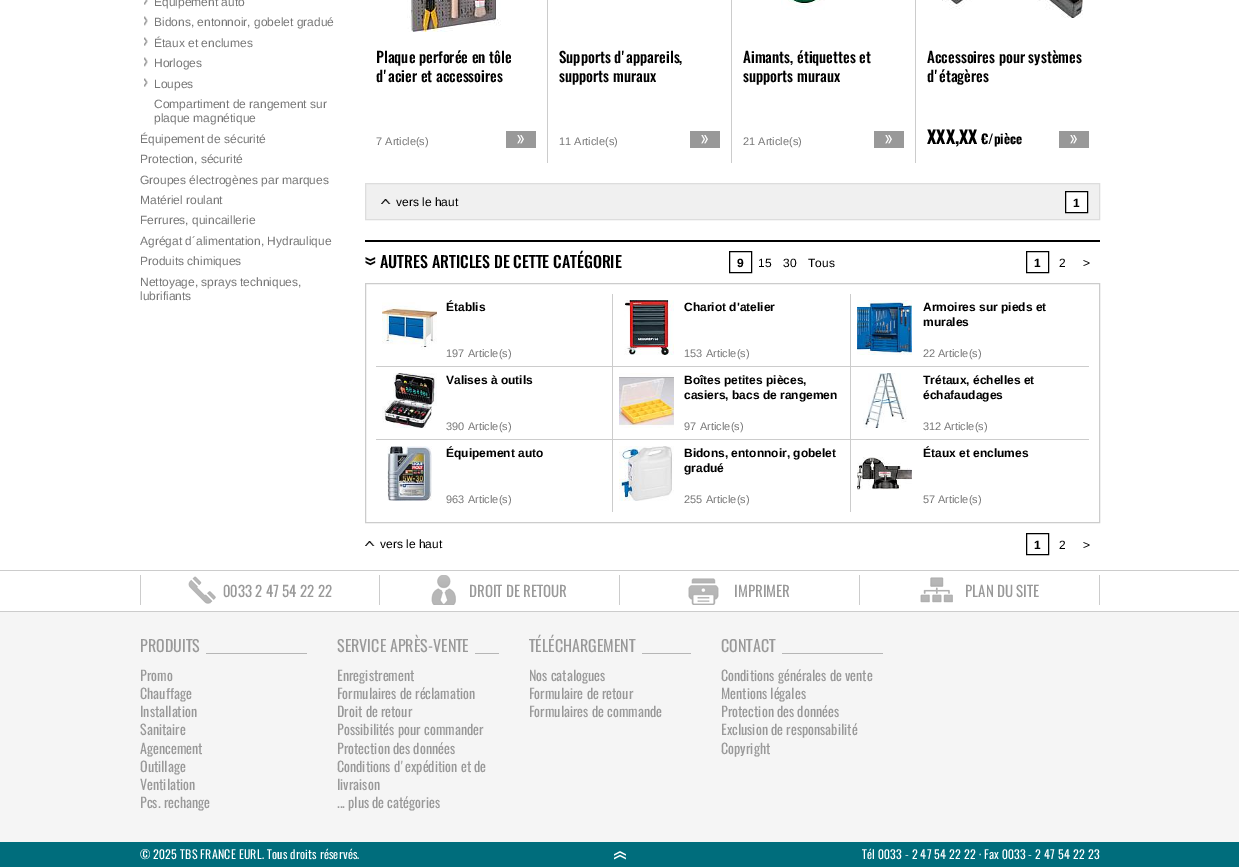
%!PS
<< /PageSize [1239 867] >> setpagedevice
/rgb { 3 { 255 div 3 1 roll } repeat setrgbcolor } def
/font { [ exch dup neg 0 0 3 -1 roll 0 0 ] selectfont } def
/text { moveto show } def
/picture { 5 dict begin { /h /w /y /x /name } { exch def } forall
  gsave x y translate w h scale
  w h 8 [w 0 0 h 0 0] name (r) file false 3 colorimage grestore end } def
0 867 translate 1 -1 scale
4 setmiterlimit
255 255 255 rgb
0 0 1239 867 rectfill
(img_01.rgb) 144 0 4 5 picture
(img_02.rgb) 144 16 4 10 picture
(img_03.rgb) 144 37 4 9 picture
(img_02.rgb) 144 57 4 10 picture
(img_03.rgb) 144 78 4 9 picture
204 204 204 rgb
547 0 1 163 rectfill
(img_04.rgb) 407 0 94 32 picture
153 153 153 rgb
506 131 30 17 rectfill
(img_05.rgb) 517 135 7 9 picture
204 204 204 rgb
731 0 1 163 rectfill
153 153 153 rgb
690 131 30 17 rectfill
(img_05.rgb) 701 135 7 9 picture
204 204 204 rgb
915 0 1 163 rectfill
(img_06.rgb) 781 0 44 10 picture
153 153 153 rgb
874 131 30 17 rectfill
(img_05.rgb) 885 135 7 9 picture
(img_07.rgb) 942 0 141 18 picture
1059 131 30 17 rectfill
(img_05.rgb) 1070 135 7 9 picture
240 240 240 rgb
365.5 183.5 moveto 734 0 rlineto 0 36 rlineto -734 0 rlineto closepath gsave fill grestore
221 221 221 rgb
stroke
(img_08.rgb) 381 199 10 5 picture
255 255 255 rgb
1065.5 191.5 moveto 22 0 rlineto 0 21 rlineto -22 0 rlineto closepath gsave fill grestore
0 0 0 rgb
stroke
365 240 735 2 rectfill
(img_09.rgb) 365 257 11 9 picture
729.5 251.5 22 21 rectstroke
1026.5 251.5 22 21 rectstroke
204 204 204 rgb
365.5 283.5 734 239 rectstroke
612 294 1 72 rectfill
(img_10.rgb) 382 302 55 48 picture
850 294 1 72 rectfill
(img_11.rgb) 624 300 50 55 picture
(img_12.rgb) 857 300 55 55 picture
376 366 713 1 rectfill
612 366 1 73 rectfill
(img_13.rgb) 382 373 55 55 picture
850 366 1 73 rectfill
(img_14.rgb) 619 373 55 55 picture
(img_15.rgb) 863 373 44 55 picture
376 439 713 1 rectfill
612 439 1 73 rectfill
(img_16.rgb) 387 446 45 55 picture
850 439 1 73 rectfill
(img_17.rgb) 619 446 55 55 picture
(img_18.rgb) 857 457 55 33 picture
(img_19.rgb) 365 541 10 5 picture
0 0 0 rgb
1026.5 533.5 22 21 rectstroke
204 204 204 rgb
0 570 1239 1 rectfill
0 611 1239 1 rectfill
379 575 1 30 rectfill
140 575 1 30 rectfill
(img_20.rgb) 188 576 28 28 picture
619 575 1 30 rectfill
(img_21.rgb) 431 575 25 30 picture
859 575 1 30 rectfill
(img_22.rgb) 688 578 31 27 picture
1099 575 1 30 rectfill
(img_23.rgb) 920 577 33 26 picture
245 245 245 rgb
0 612 1239 230 rectfill
182 182 182 rgb
206 653 101 1 rectfill
475 653 24 1 rectfill
642 653 49 1 rectfill
782 653 101 1 rectfill
0 109 124 rgb
0 842 1239 25 rectfill
(img_24.rgb) 614 851 12 9 picture
/LiberationSans-Regular 12 font
119 119 119 rgb
(Équipement auto) 154 6 text
(Bidons, entonnoir, gobelet gradué) 154 26 text
(Étaux et enclumes) 154 47 text
(Horloges) 154 67 text
(Loupes) 154 88 text
(Compartiment de rangement sur) 154 108 text
(plaque magnétique) 154 122 text
(Équipement de sécurité) 140 143 text
(Protection, sécurité) 140 163 text
(Groupes électrogènes par marques) 140 184 text
(Matériel roulant) 140 204 text
(Ferrures, quincaillerie) 140 224 text
(Agrégat d´alimentation, Hydraulique) 140 245 text
(Produits chimiques) 140 265 text
(Nettoyage, sprays techniques,) 140 286 text
(lubrifiants) 140 300 text
/Oswald-Medium 15 font
0 0 0 rgb
(Plaque perforée en tôle) 376 63 text
(d'acier et accessoires) 376 82 text
/LiberationSans-Regular 11 font
119 119 119 rgb
(7 Article\(s\)) 376 145 text
/Oswald-Medium 15 font
0 0 0 rgb
(Supports d'appareils,) 559 63 text
(supports muraux) 559 82 text
/LiberationSans-Regular 11 font
119 119 119 rgb
(11 Article\(s\)) 559 145 text
/Oswald-Medium 15 font
0 0 0 rgb
(Aimants, étiquettes et) 743 63 text
(supports muraux) 743 82 text
/LiberationSans-Regular 11 font
119 119 119 rgb
(21 Article\(s\)) 743 145 text
/Oswald-Medium 15 font
0 0 0 rgb
(Accessoires pour systèmes) 927 63 text
(d'étagères) 927 82 text
/Oswald-Bold 18 font
(XXX,XX) 927 144 text
/Oswald-Bold 13 font
(€/pièce) 981 144 text
/LiberationSans-Regular 12 font
(vers le haut) 396 206 text
/LiberationSans-Bold 12 font
(1) 1073 207 text
/Oswald-Medium 16 font
(AUTRES ARTICLES DE CETTE CATÉGORIE) 380 268 text
/LiberationSans-Bold 12 font
(9) 737 267 text
/LiberationSans-Regular 12 font
(15) 758 267 text
(30) 783 267 text
(Tous) 808 267 text
/LiberationSans-Bold 12 font
(1) 1034 267 text
/LiberationSans-Regular 12 font
(2) 1059 267 text
(>) 1083 267 text
/LiberationSans-Bold 12 font
(Établis) 446 311 text
/LiberationSans-Regular 11 font
119 119 119 rgb
(197) 446 357 text
(Article\(s\)) 468 357 text
/LiberationSans-Bold 12 font
0 0 0 rgb
(Chariot d'atelier) 684 311 text
/LiberationSans-Regular 11 font
119 119 119 rgb
(153) 684 357 text
(Article\(s\)) 706 357 text
/LiberationSans-Bold 12 font
0 0 0 rgb
(Armoires sur pieds et) 923 311 text
(murales) 923 326 text
/LiberationSans-Regular 11 font
119 119 119 rgb
(22) 923 357 text
(Article\(s\)) 938 357 text
/LiberationSans-Bold 12 font
0 0 0 rgb
(Valises à outils) 446 384 text
/LiberationSans-Regular 11 font
119 119 119 rgb
(390) 446 430 text
(Article\(s\)) 468 430 text
/LiberationSans-Bold 12 font
0 0 0 rgb
(Boîtes petites pièces,) 684 384 text
(casiers, bacs de rangemen) 684 399 text
/LiberationSans-Regular 11 font
119 119 119 rgb
(97) 684 430 text
(Article\(s\)) 700 430 text
/LiberationSans-Bold 12 font
0 0 0 rgb
(Trétaux, échelles et) 923 384 text
(échafaudages) 923 399 text
/LiberationSans-Regular 11 font
119 119 119 rgb
(312) 923 430 text
(Article\(s\)) 944 430 text
/LiberationSans-Bold 12 font
0 0 0 rgb
(Équipement auto) 446 457 text
/LiberationSans-Regular 11 font
119 119 119 rgb
(963) 446 503 text
(Article\(s\)) 468 503 text
/LiberationSans-Bold 12 font
0 0 0 rgb
(Bidons, entonnoir, gobelet) 684 457 text
(gradué) 684 472 text
/LiberationSans-Regular 11 font
119 119 119 rgb
(255) 684 503 text
(Article\(s\)) 706 503 text
/LiberationSans-Bold 12 font
0 0 0 rgb
(Étaux et enclumes) 923 457 text
/LiberationSans-Regular 11 font
119 119 119 rgb
(57) 923 503 text
(Article\(s\)) 938 503 text
/LiberationSans-Regular 12 font
0 0 0 rgb
(vers le haut) 380 548 text
/LiberationSans-Bold 12 font
(1) 1034 549 text
/LiberationSans-Regular 12 font
(2) 1059 549 text
(>) 1083 549 text
/Oswald-Regular 15 font
153 153 153 rgb
(0033 2 47 54 22 22) 223 597 text
(DROIT DE RETOUR) 469 597 text
(IMPRIMER) 734 597 text
(PLAN DU SITE) 965 597 text
/Oswald-Regular 16 font
(PRODUITS) 140 652 text
/Oswald-Regular 14 font
(Promo) 140 681 text
(Chauffage) 140 699 text
(Installation) 140 717 text
(Sanitaire) 140 735 text
(Agencement) 140 754 text
(Outillage) 140 772 text
(Ventilation) 140 790 text
(Pcs. rechange) 140 808 text
/Oswald-Regular 16 font
(SERVICE APRÈS-VENTE) 337 652 text
/Oswald-Regular 14 font
(Enregistrement) 337 681 text
(Formulaires de réclamation) 337 699 text
(Droit de retour) 337 717 text
(Possibilités pour commander) 337 735 text
(Protection des données) 337 754 text
(Conditions d'expédition et de) 337 772 text
(livraison) 337 790 text
(... plus de catégories) 337 808 text
/Oswald-Regular 16 font
(TÉLÉCHARGEMENT) 529 652 text
/Oswald-Regular 14 font
(Nos catalogues) 529 681 text
(Formulaire de retour) 529 699 text
(Formulaires de commande) 529 717 text
/Oswald-Regular 16 font
(CONTACT) 721 652 text
/Oswald-Regular 14 font
(Conditions générales de vente) 721 681 text
(Mentions légales) 721 699 text
(Protection des données) 721 717 text
(Exclusion de responsabilité) 721 735 text
(Copyright) 721 754 text
/Oswald-Regular 12 font
255 255 255 rgb
140 859 moveto 0.18 0 (© 2025 TBS FRANCE EURL. Tous droits réservés.) ashow
862 859 moveto 0.18 0 (Tél 0033 - 2 47 54 22 22 · Fax 0033 - 2 47 54 22 23) ashow
showpage
